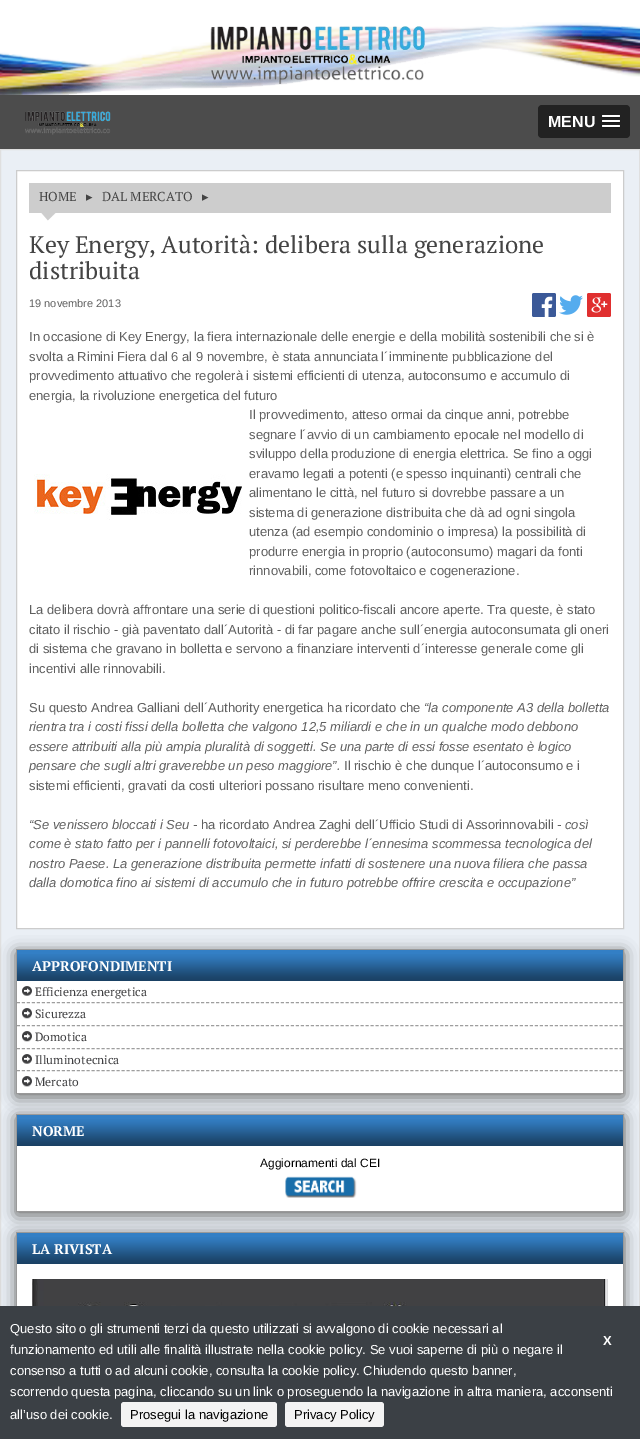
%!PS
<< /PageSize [640 1439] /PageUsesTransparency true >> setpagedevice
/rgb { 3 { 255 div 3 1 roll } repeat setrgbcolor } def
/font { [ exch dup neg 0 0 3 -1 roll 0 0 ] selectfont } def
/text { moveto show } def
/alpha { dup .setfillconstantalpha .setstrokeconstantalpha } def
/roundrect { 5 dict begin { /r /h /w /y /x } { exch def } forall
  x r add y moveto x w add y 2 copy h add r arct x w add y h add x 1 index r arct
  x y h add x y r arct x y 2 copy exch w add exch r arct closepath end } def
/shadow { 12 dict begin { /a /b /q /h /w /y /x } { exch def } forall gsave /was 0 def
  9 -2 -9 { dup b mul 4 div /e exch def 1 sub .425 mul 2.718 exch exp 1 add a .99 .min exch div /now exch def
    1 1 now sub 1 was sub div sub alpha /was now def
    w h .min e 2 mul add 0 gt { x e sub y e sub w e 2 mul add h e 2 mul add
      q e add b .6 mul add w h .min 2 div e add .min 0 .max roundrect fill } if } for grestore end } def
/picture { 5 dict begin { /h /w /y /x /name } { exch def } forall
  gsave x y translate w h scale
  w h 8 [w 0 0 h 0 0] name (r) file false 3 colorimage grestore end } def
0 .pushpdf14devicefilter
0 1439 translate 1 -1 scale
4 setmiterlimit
255 255 255 rgb
0 0 640 1439 rectfill
(img_01.rgb) 0 22 640 73 picture
(img_02.rgb) 210 26 215 58 picture
76 76 76 rgb
0 95 640 54 rectfill
(img_03.rgb) 25 111 86 24 picture
34 34 34 rgb
538 105 92 33 4 roundrect fill
26 26 26 rgb
602 116.5 moveto -1 2 3.5 1.5 3.5 1.5 rcurveto 11 0 rlineto 0 0 4.5 0.5 3.5 -1.5 rcurveto -1 1 -7.5 0.5 -9 0.5 rcurveto -1.5 0 -8 0.5 -9 -0.5 rcurveto closepath fill
255 255 255 rgb
602 115 18 2 1 roundrect fill
26 26 26 rgb
602 121.5 moveto -1 2 3.5 1.5 3.5 1.5 rcurveto 11 0 rlineto 0 0 4.5 0.5 3.5 -1.5 rcurveto -1 1 -7.5 0.5 -9 0.5 rcurveto -1.5 0 -8 0.5 -9 -0.5 rcurveto closepath fill
255 255 255 rgb
602 120 18 2 1 roundrect fill
26 26 26 rgb
602 126.5 moveto -1 2 3.5 1.5 3.5 1.5 rcurveto 11 0 rlineto 0 0 4.5 0.5 3.5 -1.5 rcurveto -1 1 -7.5 0.5 -9 0.5 rcurveto -1.5 0 -8 0.5 -9 -0.5 rcurveto closepath fill
255 255 255 rgb
602 125 18 2 1 roundrect fill
234 239 245 rgb
1 150 638 1156 rectfill
223 223 223 rgb
0.5 149.5 639 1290 rectstroke
255 255 255 rgb
16.5 170.5 moveto 607 0 rlineto 0 758 rlineto -607 0 rlineto closepath gsave fill grestore
204 204 204 rgb
stroke
205 205 205 rgb
29 183 582 38 rectfill
(img_04.rgb) 29 213 582 8 picture
(img_05.rgb) 532 293 24 24 picture
(img_06.rgb) 559 295 24 20 picture
(img_07.rgb) 587 293 24 24 picture
(img_08.rgb) 34 474 208 46 picture
102 102 102 rgb
16 952 608 145 0 7.5 1 shadow
153 153 153 rgb
16.5 949.5 607 144 rectstroke
51 127 197 rgb
17 950 606 31 rectfill
(img_09.rgb) 17 954 606 27 picture
255 255 255 rgb
17 981 606 112 rectfill
(img_10.rgb) 22 986 10 10 picture
158 158 158 rgb
[3 1.98] 0 setdash
17 1002.5 moveto 606 0 rlineto stroke
(img_11.rgb) 22 1008 10 11 picture
17 1025.5 moveto 606 0 rlineto stroke
(img_11.rgb) 22 1031 10 11 picture
17 1048.5 moveto 606 0 rlineto stroke
(img_10.rgb) 22 1054 10 10 picture
17 1070.5 moveto 606 0 rlineto stroke
(img_12.rgb) 22 1076 10 11 picture
102 102 102 rgb
16 1117 608 98 0 7.5 1 shadow
153 153 153 rgb
[] 0 setdash
16.5 1114.5 607 97 rectstroke
51 127 197 rgb
17 1115 606 31 rectfill
(img_09.rgb) 17 1119 606 27 picture
255 255 255 rgb
17 1146 606 65 rectfill
(img_13.rgb) 285 1176 72 22 picture
102 102 102 rgb
16 1235 608 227 0 7.5 1 shadow
153 153 153 rgb
16.5 1232.5 607 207 rectstroke
51 127 197 rgb
17 1233 606 31 rectfill
(img_09.rgb) 17 1237 606 27 picture
255 255 255 rgb
17 1264 606 42 rectfill
(img_14.rgb) 32 1279 576 27 picture
59 64 69 rgb
0 1306 640 133 rectfill
243 243 243 rgb
121 1402 156 25 3 roundrect fill
285 1402 99 25 3 roundrect fill
/LiberationSans-Bold 16 font
255 255 255 rgb
(MENU) 548 127 text
/PTSerif-Regular 13 font
68 68 68 rgb
(HOME) 39 201 text
/DejaVuSans-Regular 13 font
(▸) 86 201 text
/PTSerif-Regular 13 font
(DAL MERCATO) 102 201 text
/DejaVuSans-Regular 13 font
(▸) 202 201 text
/PTSerif-Regular 24 font
(Key Energy, Autorità: delibera sulla generazione) 29 253 text
(distribuita) 29 279 text
/LiberationSans-Regular 11 font
95 95 95 rgb
(19 novembre 2013) 29 307 text
/LiberationSans-Regular 13 font
(In occasione di Key Energy, la fiera internazionale delle energie e della mobilità sostenibili che si è) 29 341 text
(svolta a Rimini Fiera dal 6 al 9 novembre, è stata annunciata l´imminente pubblicazione del) 29 361 text
(provvedimento attuativo che regolerà i sistemi efficienti di utenza, autoconsumo e accumulo di) 29 380 text
(energia, la rivoluzione energetica del futuro) 29 400 text
(Il provvedimento, atteso ormai da cinque anni, potrebbe) 249 419 text
(segnare l´avvio di un cambiamento epocale nel modello di) 249 439 text
(sviluppo della produzione di energia elettrica. Se fino a oggi) 249 458 text
(eravamo legati a potenti \(e spesso inquinanti\) centrali che) 249 478 text
(alimentano le città, nel futuro si dovrebbe passare a un) 249 497 text
(sistema di generazione distribuita che dà ad ogni singola) 249 517 text
(utenza \(ad esempio condominio o impresa\) la possibilità di) 249 536 text
(produrre energia in proprio \(autoconsumo\) magari da fonti) 249 556 text
(rinnovabili, come fotovoltaico e cogenerazione.) 249 575 text
(La delibera dovrà affrontare una serie di questioni politico-fiscali ancore aperte. Tra queste, è stato) 29 614 text
(citato il rischio - già paventato dall´Autorità - di far pagare anche sull´energia autoconsumata gli oneri) 29 634 text
(di sistema che gravano in bolletta e servono a finanziare interventi d´interesse generale come gli) 29 653 text
(incentivi alle rinnovabili.) 29 673 text
(Su questo Andrea Galliani dell´Authority energetica ha ricordato che) 29 712 text
/LiberationSans-Italic 13 font
(“la componente A3 della bolletta) 424 712 text
(rientra tra i costi fissi della bolletta che valgono 12,5 miliardi e che in un qualche modo debbono) 29 731 text
(essere attribuiti alla più ampia pluralità di soggetti. Se una parte di essi fosse esentato è logico) 29 751 text
(pensare che sugli altri graverebbe un peso maggiore”.) 29 770 text
/LiberationSans-Regular 13 font
(Il rischio è che dunque l´autoconsumo e i) 344 770 text
(sistemi efficienti, gravati da costi ulteriori possano risultare meno convenienti.) 29 790 text
/LiberationSans-Italic 13 font
(“Se venissero bloccati i Seu -) 29 829 text
/LiberationSans-Regular 13 font
(ha ricordato Andrea Zaghi dell´Ufficio Studi di Assorinnovabili) 201 829 text
/LiberationSans-Italic 13 font
(- così) 557 829 text
(come è stato fatto per i pannelli fotovoltaici, si perderebbe l´ennesima scommessa tecnologica del) 29 848 text
(nostro Paese. La generazione distribuita permette infatti di sostenere una nuova filiera che passa) 29 868 text
(dalla domotica fino ai sistemi di accumulo che in futuro potrebbe offrire crescita e occupazione”) 29 887 text
/PTSerif-Bold 14 font
255 255 255 rgb
(APPROFONDIMENTI) 32 971 text
/PTSerif-Regular 12 font
62 62 64 rgb
(Efficienza energetica) 35 996 text
(Sicurezza) 35 1018 text
(Domotica) 35 1041 text
(Illuminotecnica) 35 1064 text
(Mercato) 35 1086 text
/PTSerif-Bold 14 font
255 255 255 rgb
(NORME) 32 1136 text
/LiberationSans-Regular 12 font
0 0 0 rgb
(Aggiornamenti dal CEI) 260 1167 text
/PTSerif-Bold 14 font
255 255 255 rgb
(LA RIVISTA) 32 1254 text
/LiberationSans-Regular 13 font
(Questo sito o gli strumenti terzi da questo utilizzati si avvalgono di cookie necessari al) 10 1333 text
/LiberationSans-Bold 13 font
(X) 603 1345 text
/LiberationSans-Regular 13 font
(funzionamento ed utili alle finalità illustrate nella cookie policy. Se vuoi saperne di più o negare il) 10 1354 text
(consenso a tutti o ad alcuni cookie, consulta la cookie policy. Chiudendo questo banner,) 10 1375 text
(scorrendo questa pagina, cliccando su un link o proseguendo la navigazione in altra maniera, acconsenti) 10 1396 text
(all’uso dei cookie.) 10 1419 text
0 0 0 rgb
(Prosegui la navigazione) 130 1419 text
(Privacy Policy) 294 1419 text
.poppdf14devicefilter showpage
